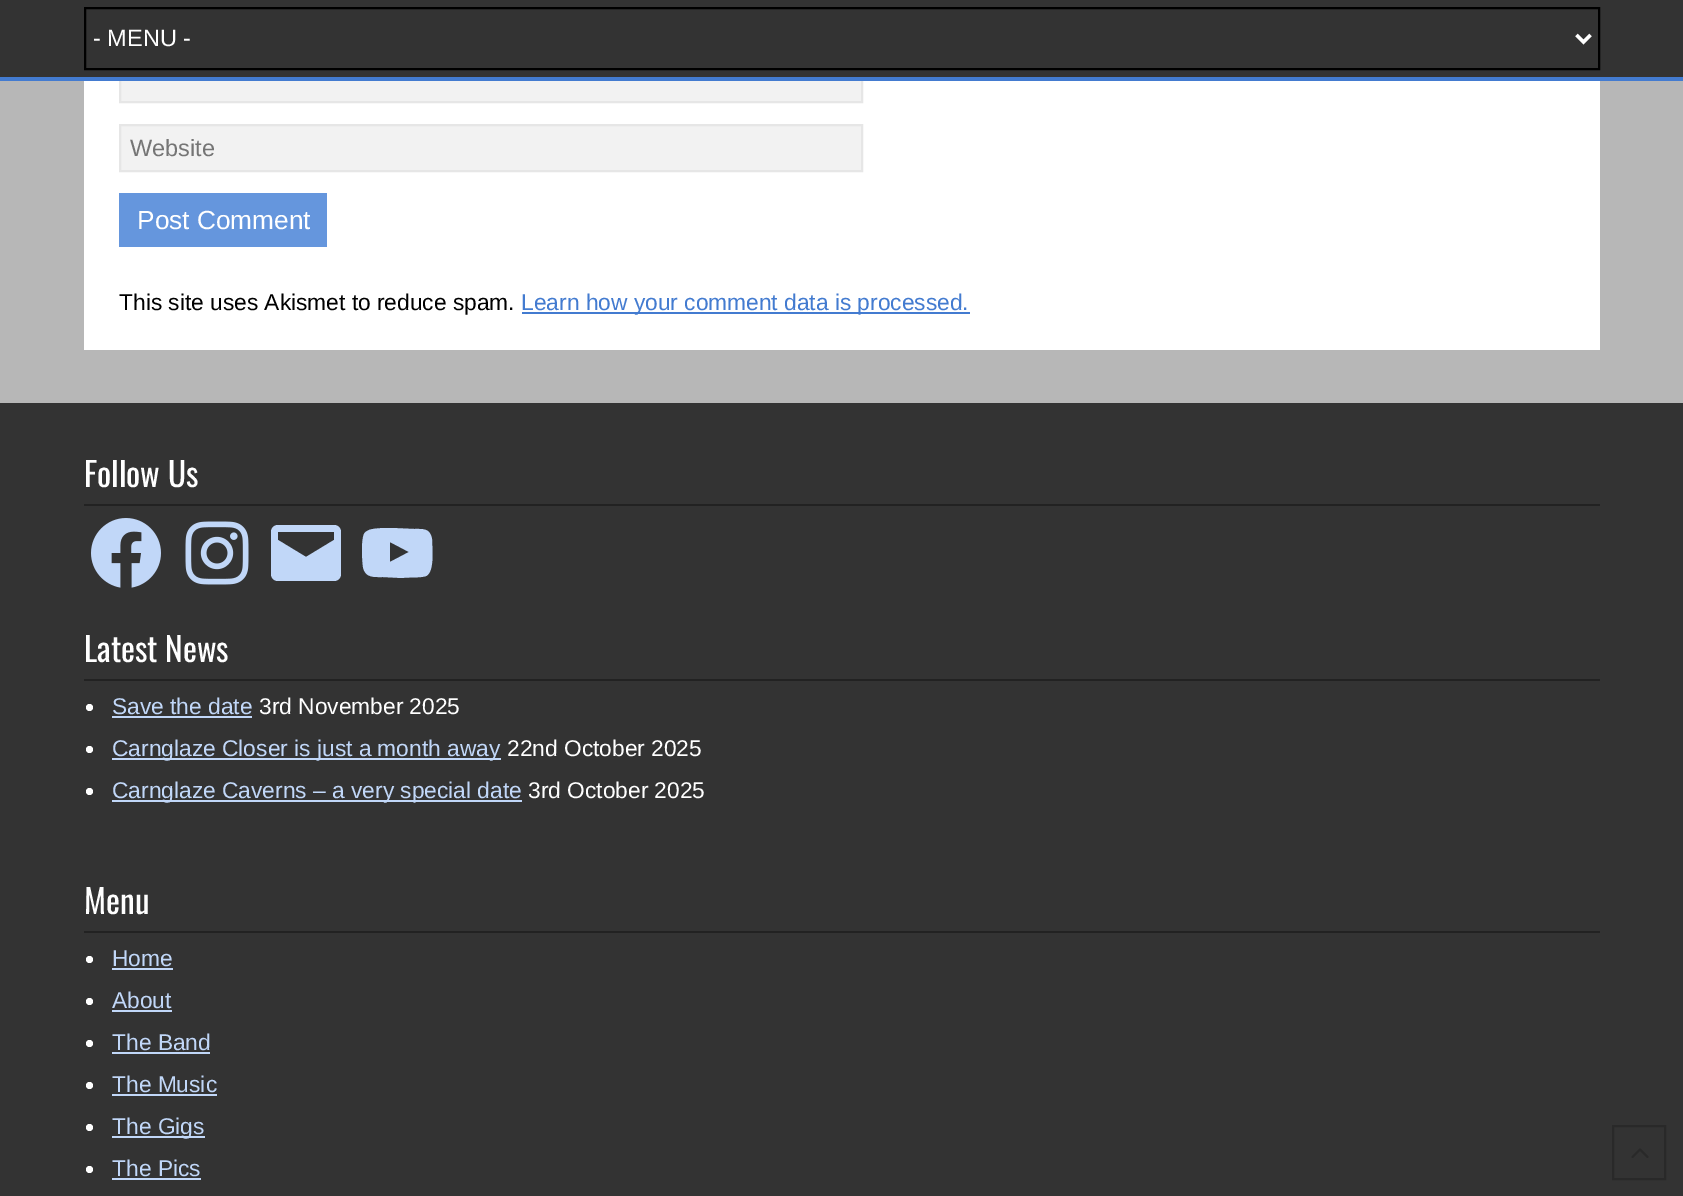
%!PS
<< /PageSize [1683 1196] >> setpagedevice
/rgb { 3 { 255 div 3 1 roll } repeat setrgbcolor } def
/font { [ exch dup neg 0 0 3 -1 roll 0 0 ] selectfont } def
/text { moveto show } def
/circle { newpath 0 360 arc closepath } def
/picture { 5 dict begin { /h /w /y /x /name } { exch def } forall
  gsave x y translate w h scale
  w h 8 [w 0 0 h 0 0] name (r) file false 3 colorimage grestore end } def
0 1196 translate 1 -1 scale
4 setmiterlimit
183 183 183 rgb
0 0 1683 1196 rectfill
255 255 255 rgb
84 81 1516 269 rectfill
242 242 242 rgb
121 81 740 20 rectfill
230 230 230 rgb
2 setlinewidth
120 57 742 45 rectstroke
51 51 51 rgb
0 0 1683 77 rectfill
67 123 208 rgb
0 77 1683 4 rectfill
0 0 0 rgb
85 8 1514 61 rectstroke
255 255 255 rgb
3.5 setlinewidth
1576.5 35 moveto 7 7 rlineto 7 -7 rlineto stroke
242 242 242 rgb
120 125 moveto 742 0 rlineto 0 46 rlineto -742 0 rlineto closepath gsave fill grestore
230 230 230 rgb
2 setlinewidth
stroke
101 150 221 rgb
119 193 208 54 rectfill
67 123 208 rgb
522 312 448 2 rectfill
51 51 51 rgb
0 403 1683 793 rectfill
34 34 34 rgb
84 504 1516 2 rectfill
(img_01.rgb) 91 518 70 70 picture
(img_02.rgb) 185 521 64 64 picture
193 215 248 rgb
334 525 moveto -56 0 rlineto -4 0 -7 3 -7 7 rcurveto 0 42 rlineto 0 4 3 7 7 7 rcurveto 56 0 rlineto 4 0 7 -3 7 -7 rcurveto 0 -42 rlineto 0 -4 -3 -7 -7 -7 rcurveto closepath 334 540 moveto -28 17 rlineto -28 -17 rlineto 0 -8 rlineto 56 0 rlineto closepath fill
432 539 moveto -2 -11 -9 -10 -18 -10 rcurveto -22 -1 rlineto -6 0 -18 0 -23 2 rcurveto -2 1 -4 2 -5 4 rcurveto -3 7 -2 25 -1 33 rcurveto 2 11 11 10 20 10 rcurveto 19 1 rlineto 6 -1 19 0 24 -2 rcurveto 9 -4 6 -29 6 -37 rcurveto closepath 390 562 moveto 0 -20 rlineto 19 10 rlineto closepath fill
34 34 34 rgb
84 679 1516 2 rectfill
255 255 255 rgb
89.5 707.5 3.5 circle fill
193 215 248 rgb
112 716 140 2 rectfill
255 255 255 rgb
89.5 749.5 3.5 circle fill
193 215 248 rgb
112 758 389 2 rectfill
255 255 255 rgb
89.5 791.5 3.5 circle fill
193 215 248 rgb
112 800 410 2 rectfill
34 34 34 rgb
84 931 1516 2 rectfill
255 255 255 rgb
89.5 959.5 3.5 circle fill
193 215 248 rgb
112 968 61 2 rectfill
255 255 255 rgb
89.5 1001.5 3.5 circle fill
193 215 248 rgb
112 1010 60 2 rectfill
255 255 255 rgb
89.5 1043.5 3.5 circle fill
193 215 248 rgb
112 1052 98 2 rectfill
255 255 255 rgb
89.5 1085.5 3.5 circle fill
193 215 248 rgb
112 1094 105 2 rectfill
255 255 255 rgb
89.5 1127.5 3.5 circle fill
193 215 248 rgb
112 1136 93 2 rectfill
255 255 255 rgb
89.5 1169.5 3.5 circle fill
193 215 248 rgb
112 1178 89 2 rectfill
41 41 41 rgb
1613 1126 52 53 rectstroke
(img_03.rgb) 1631 1148 18 10 picture
/LiberationSans-Regular 23.5 font
255 255 255 rgb
(- MENU -) 93 46 text
117 117 117 rgb
(Website) 130 156 text
/LiberationSans-Regular 26.25 font
255 255 255 rgb
(Post Comment) 137 229 text
/LiberationSans-Regular 22.75 font
0 0 0 rgb
(This site uses Akismet to reduce spam.) 119 310 text
67 123 208 rgb
(Learn how your comment data is processed.) 521 310 text
/Oswald-Regular 33.25 font
255 255 255 rgb
(Follow Us) 84 487 text
(Latest News) 84 662 text
/LiberationSans-Regular 22.75 font
193 215 248 rgb
(Save the date) 112 714 text
255 255 255 rgb
(3rd November 2025) 259 714 text
193 215 248 rgb
(Carnglaze Closer is just a month away) 112 756 text
255 255 255 rgb
(22nd October 2025) 507 756 text
193 215 248 rgb
(Carnglaze Caverns – a very special date) 112 798 text
255 255 255 rgb
(3rd October 2025) 528 798 text
/Oswald-Regular 33.25 font
(Menu) 84 914 text
/LiberationSans-Regular 22.75 font
193 215 248 rgb
(Home) 112 966 text
(About) 112 1008 text
(The Band) 112 1050 text
(The Music) 112 1092 text
(The Gigs) 112 1134 text
(The Pics) 112 1176 text
showpage
